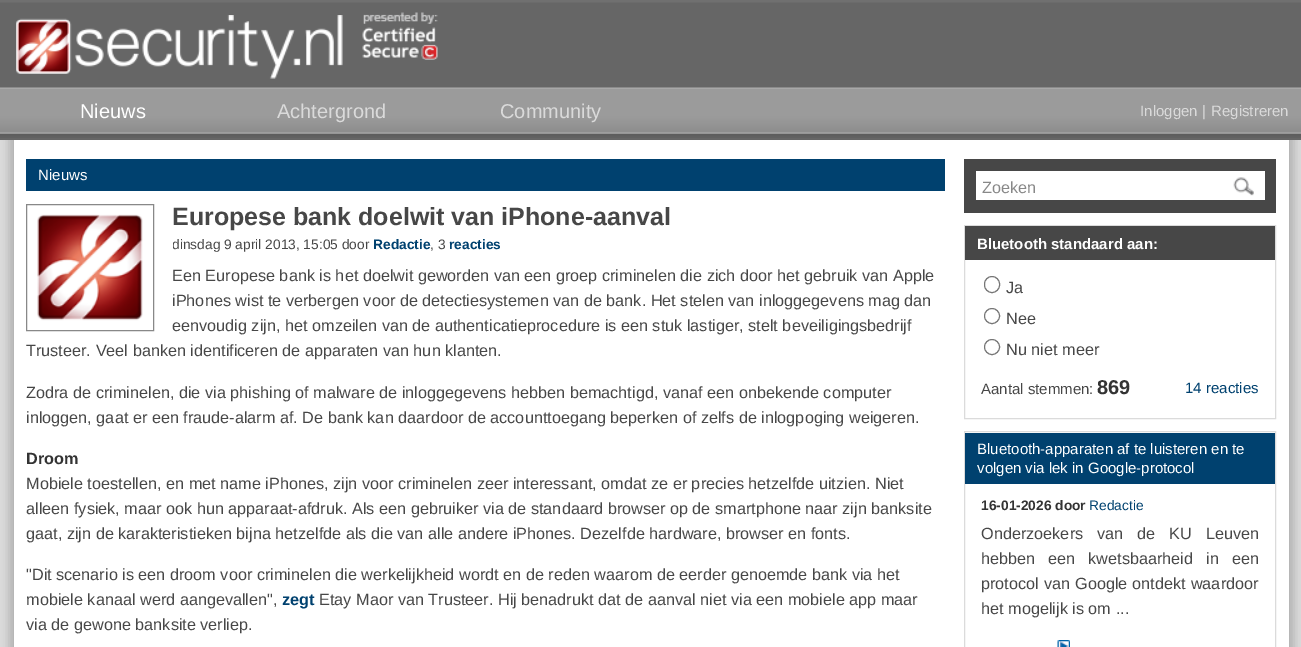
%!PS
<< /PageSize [1301 647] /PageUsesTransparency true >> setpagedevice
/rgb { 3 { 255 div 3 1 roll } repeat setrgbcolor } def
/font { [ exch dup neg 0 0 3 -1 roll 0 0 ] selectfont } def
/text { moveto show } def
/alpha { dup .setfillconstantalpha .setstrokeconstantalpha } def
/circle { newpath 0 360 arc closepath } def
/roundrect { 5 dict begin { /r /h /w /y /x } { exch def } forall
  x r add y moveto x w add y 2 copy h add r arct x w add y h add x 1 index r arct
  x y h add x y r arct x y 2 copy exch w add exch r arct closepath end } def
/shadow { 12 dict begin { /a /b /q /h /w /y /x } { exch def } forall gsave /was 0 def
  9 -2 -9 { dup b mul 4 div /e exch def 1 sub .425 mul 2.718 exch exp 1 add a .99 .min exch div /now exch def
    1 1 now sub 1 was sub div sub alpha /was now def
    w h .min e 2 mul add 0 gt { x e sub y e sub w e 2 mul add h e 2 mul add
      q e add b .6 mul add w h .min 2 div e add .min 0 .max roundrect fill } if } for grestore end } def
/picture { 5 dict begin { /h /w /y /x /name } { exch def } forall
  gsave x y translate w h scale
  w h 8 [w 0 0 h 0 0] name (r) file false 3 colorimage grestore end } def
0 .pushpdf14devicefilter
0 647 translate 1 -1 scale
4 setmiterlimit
221 221 221 rgb
0 0 1301 647 rectfill
0 0 0 rgb
9 -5 1285 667 0 5 0.2 shadow
(img_01.rgb) 0 0 1301 140 picture
(img_02.rgb) 16 15 327 64 picture
(img_03.rgb) 362 12 76 48 picture
(img_04.rgb) 0 87 1301 51 picture
255 255 255 rgb
14 140 1275 507 rectfill
0 65 111 rgb
26 159 919 32 rectfill
136 136 136 rgb
26.5 204.5 127 126 rectstroke
(img_05.rgb) 37 214 106 107 picture
71 71 71 rgb
964 159 312 54 rectfill
255 255 255 rgb
976 171 289 29 rectfill
(img_06.rgb) 1233 177 21 19 picture
219 219 219 rgb
964.5 225.5 311 193 rectstroke
71 71 71 rgb
965 226 310 34 rectfill
118 118 118 rgb
984.5 276.5 15 16 7.5 roundrect stroke
992 316 7.5 circle stroke
992 347 7.5 circle stroke
219 219 219 rgb
964.5 431.5 311 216 rectstroke
0 65 111 rgb
965 433 310 51 rectfill
(img_07.rgb) 1057 640 13 7 picture
/LiberationSans-Regular 20 font
255 255 255 rgb
(Nieuws) 80 118 text
218 218 218 rgb
(Achtergrond) 277 118 text
(Community) 500 118 text
/LiberationSans-Regular 15 font
(Inloggen) 1140 116 text
(|) 1202 116 text
(Registreren) 1211 116 text
255 255 255 rgb
(Nieuws) 38 180 text
/LiberationSans-Bold 25 font
71 71 71 rgb
(Europese bank doelwit van iPhone-aanval) 172 225 text
gsave
173 235 772 19 rectclip
/LiberationSans-Regular 13.75 font
(dinsdag 9 april 2013, 15:05 door) 172 249 text
grestore
/LiberationSans-Bold 13.75 font
0 65 111 rgb
(Redactie) 373 249 text
/LiberationSans-Regular 13.75 font
71 71 71 rgb
(, 3) 430 249 text
/LiberationSans-Bold 13.75 font
0 65 111 rgb
(reacties) 449 249 text
/LiberationSans-Regular 16.25 font
71 71 71 rgb
(Een Europese bank is het doelwit geworden van een groep criminelen die zich door het gebruik van Apple) 172 281 text
(iPhones wist te verbergen voor de detectiesystemen van de bank. Het stelen van inloggegevens mag dan) 172 306 text
(eenvoudig zijn, het omzeilen van de authenticatieprocedure is een stuk lastiger, stelt beveiligingsbedrijf) 172 331 text
(Trusteer. Veel banken identificeren de apparaten van hun klanten.) 26 356 text
(Zodra de criminelen, die via phishing of malware de inloggegevens hebben bemachtigd, vanaf een onbekende computer) 26 398 text
(inloggen, gaat er een fraude-alarm af. De bank kan daardoor de accounttoegang beperken of zelfs de inlogpoging weigeren.) 26 423 text
/LiberationSans-Bold 16.25 font
51 51 51 rgb
(Droom) 26 464 text
/LiberationSans-Regular 16.25 font
71 71 71 rgb
(Mobiele toestellen, en met name iPhones, zijn voor criminelen zeer interessant, omdat ze er precies hetzelfde uitzien. Niet) 26 489 text
(alleen fysiek, maar ook hun apparaat-afdruk. Als een gebruiker via de standaard browser op de smartphone naar zijn banksite) 26 514 text
(gaat, zijn de karakteristieken bijna hetzelfde als die van alle andere iPhones. Dezelfde hardware, browser en fonts.) 26 539 text
("Dit scenario is een droom voor criminelen die werkelijkheid wordt en de reden waarom de eerder genoemde bank via het) 26 580 text
(mobiele kanaal werd aangevallen",) 26 605 text
/LiberationSans-Bold 16.25 font
0 65 111 rgb
(zegt) 282 605 text
/LiberationSans-Regular 16.25 font
71 71 71 rgb
(Etay Maor van Trusteer. Hij benadrukt dat de aanval niet via een mobiele app maar) 319 605 text
(via de gewone banksite verliep.) 26 630 text
136 136 136 rgb
(Zoeken) 982 193 text
/LiberationSans-Bold 15 font
255 255 255 rgb
(Bluetooth standaard aan:) 977 249 text
/LiberationSans-Regular 16.25 font
71 71 71 rgb
(Ja) 1006 293 text
(Nee) 1006 324 text
(Nu niet meer) 1006 355 text
/LiberationSans-Regular 15 font
(Aantal stemmen:) 981 394 text
/LiberationSans-Bold 20 font
51 51 51 rgb
(869) 1097 394 text
/LiberationSans-Regular 15 font
0 65 111 rgb
(14 reacties) 1185 393 text
255 255 255 rgb
(Bluetooth-apparaten af te luisteren en te) 977 454 text
(volgen via lek in Google-protocol) 977 473 text
/LiberationSans-Bold 13.75 font
51 51 51 rgb
(16-01-2026 door) 981 510 text
/LiberationSans-Regular 13.75 font
0 65 111 rgb
(Redactie) 1089 510 text
/LiberationSans-Regular 16.25 font
71 71 71 rgb
981 539 moveto 9.5 0 32 (Onderzoekers van de KU Leuven) widthshow
981 564 moveto 8.5 0 32 (hebben een kwetsbaarheid in een) widthshow
981 589 moveto 0.5 0 32 (protocol van Google ontdekt waardoor) widthshow
(het mogelijk is om ...) 981 614 text
.poppdf14devicefilter showpage
